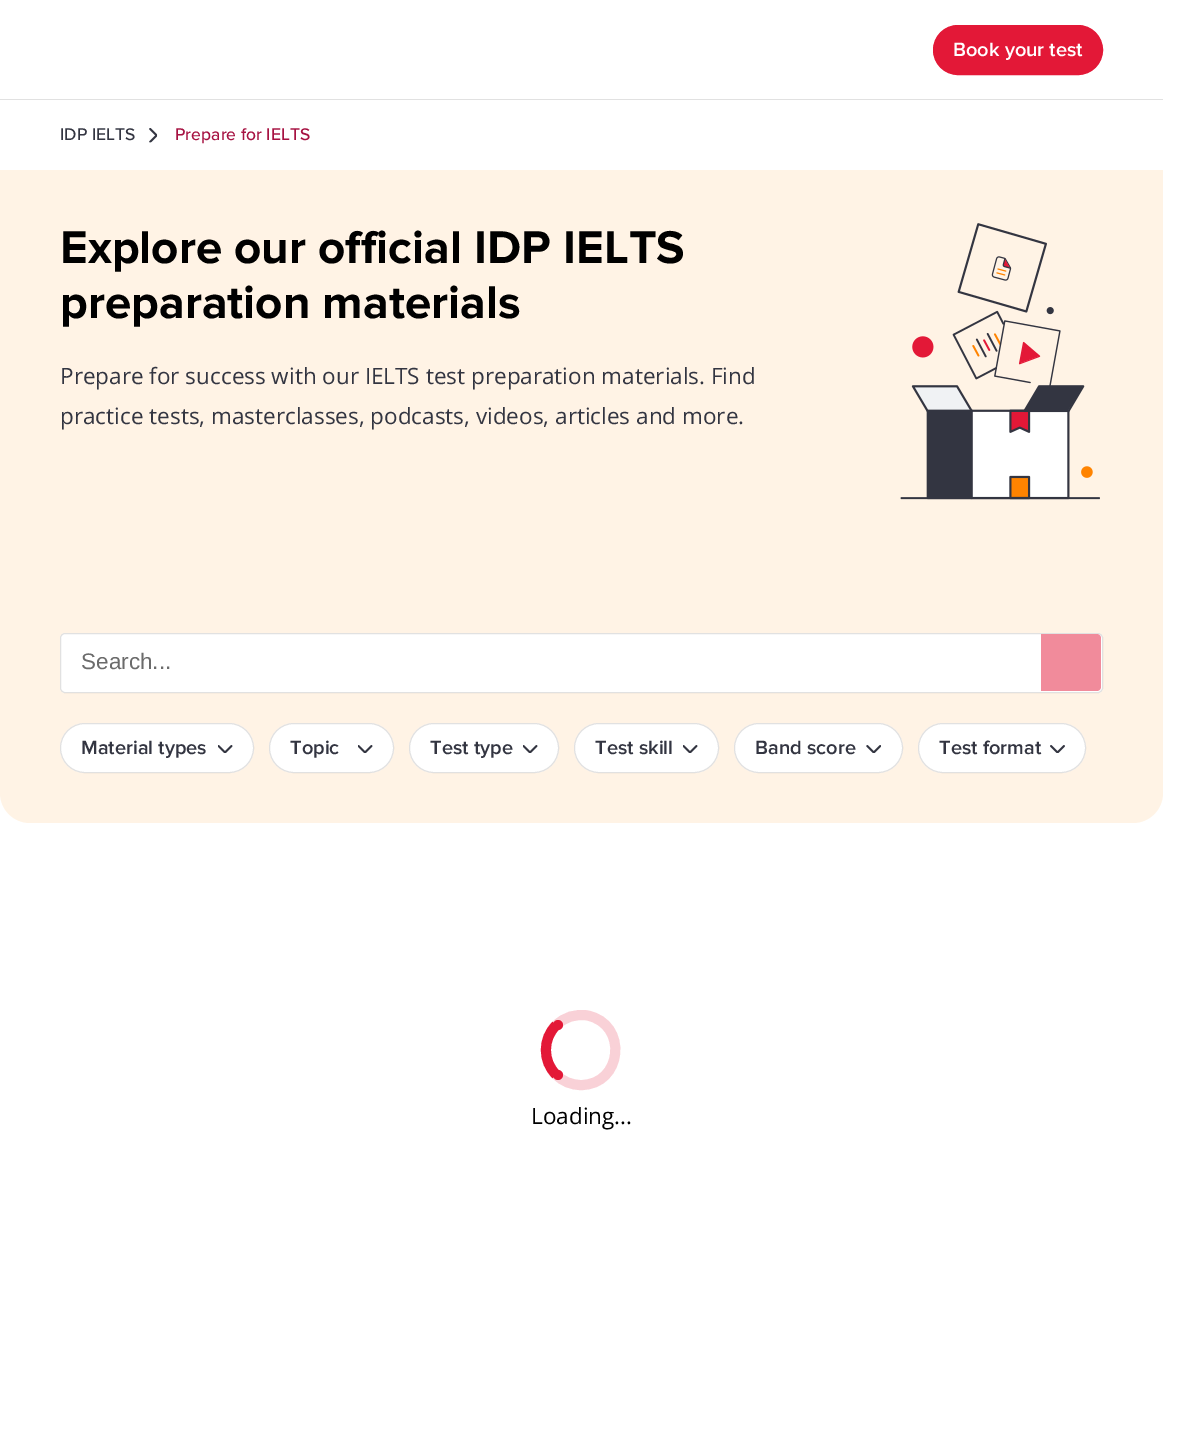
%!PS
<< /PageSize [1181 1439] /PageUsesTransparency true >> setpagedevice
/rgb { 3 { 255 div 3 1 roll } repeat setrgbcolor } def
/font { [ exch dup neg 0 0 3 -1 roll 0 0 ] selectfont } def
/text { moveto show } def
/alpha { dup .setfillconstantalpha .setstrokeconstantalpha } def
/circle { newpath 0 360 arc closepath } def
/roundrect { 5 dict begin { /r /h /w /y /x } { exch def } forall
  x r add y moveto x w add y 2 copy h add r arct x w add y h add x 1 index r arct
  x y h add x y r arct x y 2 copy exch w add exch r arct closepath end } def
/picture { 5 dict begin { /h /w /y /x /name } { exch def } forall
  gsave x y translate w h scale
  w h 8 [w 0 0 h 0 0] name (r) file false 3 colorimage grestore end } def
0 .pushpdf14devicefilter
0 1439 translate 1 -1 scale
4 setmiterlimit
255 255 255 rgb
0 0 1181 1439 rectfill
225 225 225 rgb
0 99 1163 1 rectfill
227 24 55 rgb
933.5 25.5 169 49 24.5 roundrect gsave fill grestore
stroke
(img_01.rgb) 149 128 9 15 picture
255 243 229 rgb
0 170 1163 413 rectfill
(img_02.rgb) 900 223 200 277 picture
0 583 moveto 1163 0 rlineto 0 210 rlineto 0 16.5 -13.5 30 -30 30 rcurveto -1103 0 rlineto -16.5 0 -30 -13.5 -30 -30 rcurveto closepath fill
255 255 255 rgb
60 633 1043 60 5 roundrect fill
0.25 alpha
135 135 135 rgb
60.5 633.5 1042 59 4.5 roundrect stroke
1 alpha
241 139 155 rgb
1041 634 moveto 56 0 rlineto 2 0 4 2 4 4 rcurveto 0 49 rlineto 0 2 -2 4 -4 4 rcurveto -56 0 rlineto closepath fill
255 255 255 rgb
60 723 194 50 25 roundrect fill
0.25 alpha
135 135 135 rgb
60.5 723.5 193 49 24.5 roundrect stroke
1 alpha
(img_03.rgb) 218 745 15 8 picture
255 255 255 rgb
269 723 125 50 25 roundrect fill
0.25 alpha
135 135 135 rgb
269.5 723.5 124 49 24.5 roundrect stroke
1 alpha
(img_03.rgb) 358 745 15 8 picture
255 255 255 rgb
409 723 150 50 25 roundrect fill
0.25 alpha
135 135 135 rgb
409.5 723.5 149 49 24.5 roundrect stroke
1 alpha
(img_03.rgb) 523 745 15 8 picture
255 255 255 rgb
574 723 145 50 25 roundrect fill
0.25 alpha
135 135 135 rgb
574.5 723.5 144 49 24.5 roundrect stroke
1 alpha
(img_03.rgb) 683 745 15 8 picture
255 255 255 rgb
734 723 169 50 25 roundrect fill
0.25 alpha
135 135 135 rgb
734.5 723.5 168 49 24.5 roundrect stroke
1 alpha
(img_04.rgb) 866 745 15 8 picture
255 255 255 rgb
918 723 168 50 25 roundrect fill
0.25 alpha
135 135 135 rgb
918.5 723.5 167 49 24.5 roundrect stroke
1 alpha
(img_05.rgb) 1050 745 15 8 picture
249 209 215 rgb
10 setlinewidth
556 1025.5 moveto 8 -8.5 20 -12 31.5 -10 rcurveto 41 8.5 35 69.5 -6.5 69.5 rcurveto -9.5 0 -18.5 -3.5 -25 -10.5 rcurveto stroke
227 24 55 rgb
556 1074.5 moveto -13.5 -13 -13.5 -36 0 -49 rcurveto stroke
558 1025 5 circle fill
558 1075 5 circle fill
/ProximaNova-SemiBold 20 font
255 255 255 rgb
(Book your test) 953 56 text
/ProximaNova-Medium 17.5 font
51 53 65 rgb
(IDP IELTS) 60 140 text
166 18 66 rgb
(Prepare for IELTS) 175 140 text
/ProximaNova-Bold 47.5 font
0 0 0 rgb
(Explore our official IDP IELTS) 60 263 text
(preparation materials) 60 318 text
/OpenSans-Regular 22.5 font
51 53 65 rgb
(Prepare for success with our IELTS test preparation materials. Find) 60 384 text
(practice tests, masterclasses, podcasts, videos, articles and more.) 60 424 text
/LiberationSans-Regular 22.5 font
107 107 107 rgb
(Search...) 81 669 text
/ProximaNova-SemiBold 20 font
51 53 65 rgb
(Material types) 81 754 text
(Topic) 290 754 text
(Test type) 430 754 text
(Test skill) 595 754 text
(Band score) 755 754 text
(Test format) 939 754 text
/OpenSans-Regular 22.5 font
0 0 0 rgb
(Loading...) 531 1124 text
.poppdf14devicefilter showpage
